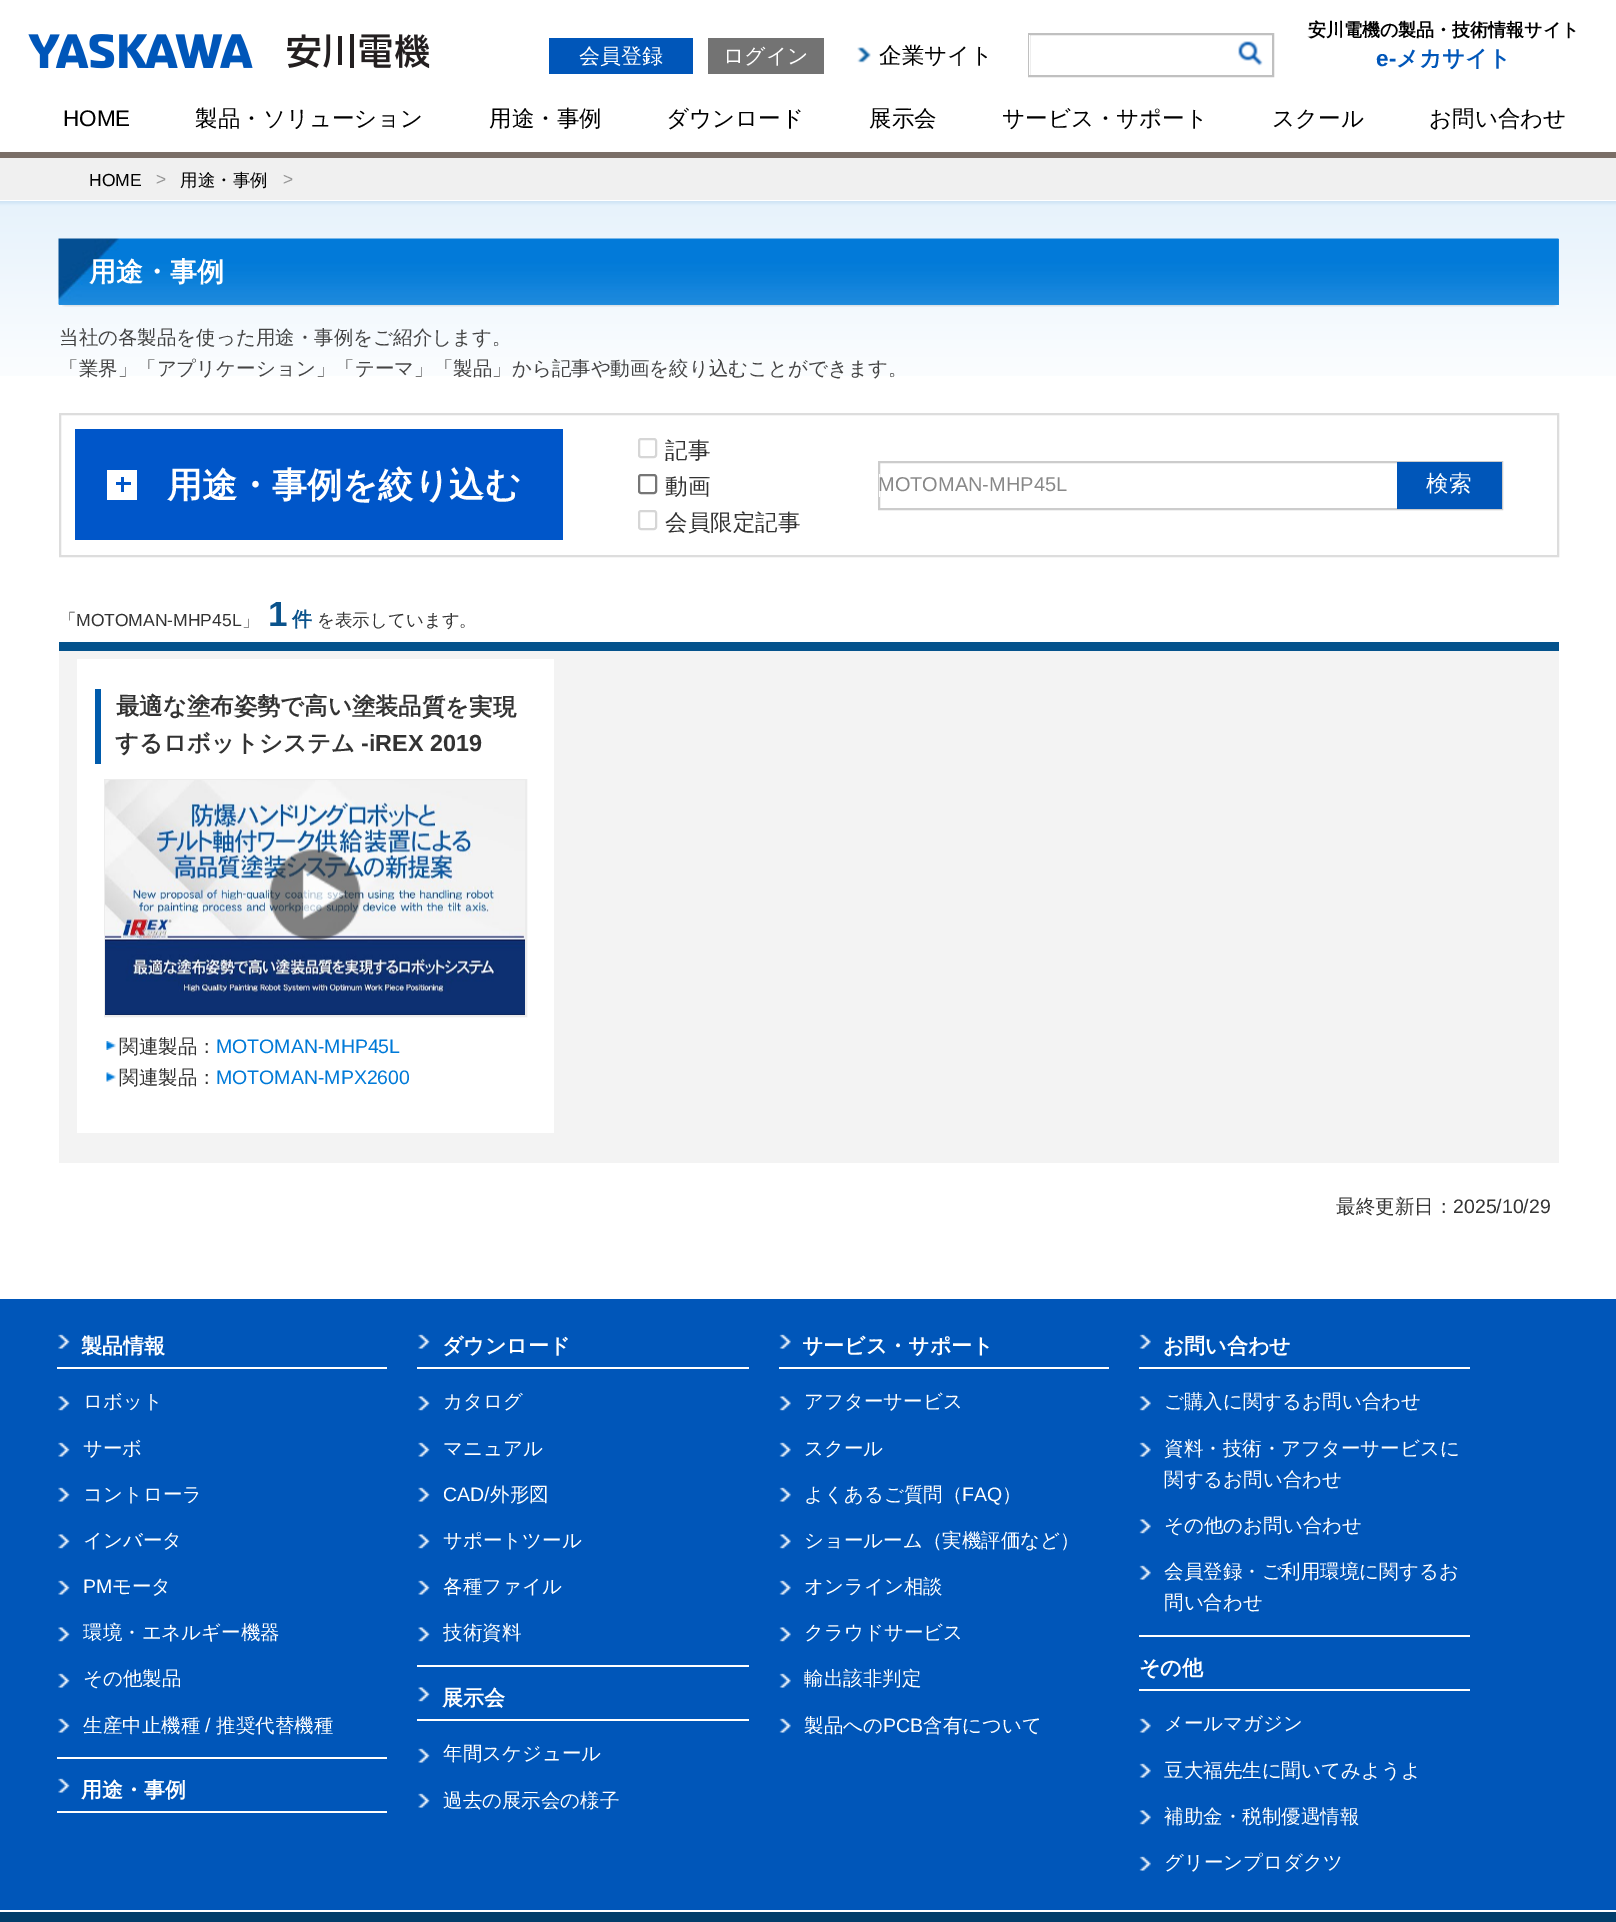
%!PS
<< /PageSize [1616 1922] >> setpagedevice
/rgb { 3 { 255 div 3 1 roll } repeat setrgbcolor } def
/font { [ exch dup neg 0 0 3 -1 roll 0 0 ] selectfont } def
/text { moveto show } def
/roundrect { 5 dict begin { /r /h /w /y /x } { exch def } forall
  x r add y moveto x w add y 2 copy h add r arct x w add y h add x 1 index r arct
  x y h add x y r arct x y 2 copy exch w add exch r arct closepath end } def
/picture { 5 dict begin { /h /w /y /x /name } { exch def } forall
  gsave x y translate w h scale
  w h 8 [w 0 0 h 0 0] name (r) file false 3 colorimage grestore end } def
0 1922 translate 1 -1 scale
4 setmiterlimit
255 255 255 rgb
0 0 1616 1922 rectfill
122 110 103 rgb
0 152 1616 6 rectfill
0 86 185 rgb
549 38 144 36 rectfill
115 115 115 rgb
708 38 116 36 rectfill
(img_01.rgb) 857 47 14 16 picture
192 192 192 rgb
2 setlinewidth
1029 34 244 42 rectstroke
255 255 255 rgb
1029 35 1 40 rectfill
(img_02.rgb) 1238 41 25 25 picture
(img_03.rgb) 28 34 402 35 picture
240 240 240 rgb
0 158 1616 42 rectfill
(img_04.rgb) 0 201 1616 175 picture
(img_05.rgb) 62 305 1495 2 picture
41 143 222 rgb
59 239 1500 66 rectfill
(img_06.rgb) 58 238 1501 67 picture
221 221 221 rgb
60 414 1498 142 rectstroke
0 86 201 rgb
75 429 488 111 rectfill
255 255 255 rgb
107 470 30 30 rectfill
0 86 201 rgb
121 477 3 15 rectfill
116 482 15 3 rectfill
214 214 214 rgb
639 439 17 18 2 roundrect stroke
118 118 118 rgb
639 475 17 18 2 roundrect stroke
214 214 214 rgb
639 511 17 18 2 roundrect stroke
204 204 204 rgb
879 462 623 47 rectstroke
255 255 255 rgb
879 474 1 23 rectfill
0 86 185 rgb
1397 462 105 47 rectfill
243 243 243 rgb
59 651 1500 512 rectfill
4 82 140 rgb
59 642 1500 9 rectfill
255 255 255 rgb
77 659 477 474 rectfill
0 91 172 rgb
95 689 6 75 rectfill
236 236 236 rgb
105 780 421 236 rectstroke
(img_07.rgb) 105 780 420 235 picture
(img_08.rgb) 269 849 92 92 picture
(img_09.rgb) 106 1041 10 9 picture
(img_10.rgb) 106 1072 10 10 picture
0 86 185 rgb
0 1299 1616 611 rectfill
(img_11.rgb) 58 1334 12 15 picture
255 255 255 rgb
57 1367 330 2 rectfill
57 1757 330 2 rectfill
(img_12.rgb) 58 1396 12 15 picture
(img_11.rgb) 58 1442 12 15 picture
(img_11.rgb) 58 1487 12 15 picture
(img_12.rgb) 58 1534 12 15 picture
(img_11.rgb) 58 1580 12 15 picture
(img_12.rgb) 58 1627 12 15 picture
(img_11.rgb) 58 1673 12 15 picture
(img_11.rgb) 58 1718 12 15 picture
(img_11.rgb) 58 1778 12 15 picture
57 1811 330 2 rectfill
(img_13.rgb) 418 1334 12 15 picture
417 1367 332 2 rectfill
417 1665 332 2 rectfill
(img_14.rgb) 418 1396 12 15 picture
(img_13.rgb) 418 1442 12 15 picture
(img_13.rgb) 418 1487 12 15 picture
(img_14.rgb) 418 1534 12 15 picture
(img_13.rgb) 418 1580 12 15 picture
(img_14.rgb) 418 1627 12 15 picture
(img_14.rgb) 418 1687 12 15 picture
417 1719 332 2 rectfill
(img_13.rgb) 418 1748 12 15 picture
(img_13.rgb) 418 1793 12 15 picture
(img_15.rgb) 779 1334 12 15 picture
779 1367 330 2 rectfill
(img_16.rgb) 779 1396 12 15 picture
(img_15.rgb) 779 1442 12 15 picture
(img_15.rgb) 779 1487 12 15 picture
(img_16.rgb) 779 1534 12 15 picture
(img_15.rgb) 779 1580 12 15 picture
(img_16.rgb) 779 1627 12 15 picture
(img_15.rgb) 779 1673 12 15 picture
(img_15.rgb) 779 1718 12 15 picture
(img_17.rgb) 1139 1334 12 15 picture
1139 1367 331 2 rectfill
1139 1635 331 2 rectfill
(img_18.rgb) 1139 1396 12 15 picture
(img_17.rgb) 1139 1442 12 15 picture
(img_18.rgb) 1139 1519 12 15 picture
(img_17.rgb) 1139 1565 12 15 picture
1139 1689 331 2 rectfill
(img_17.rgb) 1139 1718 12 15 picture
(img_17.rgb) 1139 1763 12 15 picture
(img_18.rgb) 1139 1810 12 15 picture
(img_17.rgb) 1139 1856 12 15 picture
2 62 107 rgb
0 1912 1616 10 rectfill
/WenQuanYiZenHei-Medium 21 font
255 255 255 rgb
(会員登録) 579 63 text
(ログイン) 723 63 text
/WenQuanYiZenHei-Medium 22.5 font
0 0 0 rgb
(企業サイト) 879 63 text
/WenQuanYiZenHei-Bold 18 font
(安川電機の製品・技術情報サイト) 1308 36 text
/LiberationSans-Bold 22.5 font
0 86 185 rgb
(e-) 1376 66 text
/WenQuanYiZenHei-Bold 22.5 font
(メカサイト) 1396 66 text
/LiberationSans-Regular 22.5 font
0 0 0 rgb
(HOME) 63 126 text
/WenQuanYiZenHei-Medium 22.5 font
(製品・ソリューション) 195 126 text
(用途・事例) 489 126 text
(ダウンロード) 666 126 text
(展示会) 869 126 text
(サービス・サポート) 1002 126 text
(スクール) 1272 126 text
(お問い合わせ) 1429 126 text
/LiberationSans-Regular 17.5 font
(HOME) 89 186 text
150 150 150 rgb
(>) 156 185 text
/WenQuanYiZenHei-Medium 17.5 font
0 0 0 rgb
(用途・事例) 180 186 text
/LiberationSans-Regular 17.5 font
150 150 150 rgb
(>) 283 185 text
/WenQuanYiZenHei-Bold 27 font
255 255 255 rgb
(用途・事例) 89 281 text
/WenQuanYiZenHei-Medium 19.5 font
68 68 68 rgb
(当社の各製品を使った用途・事例をご紹介します。) 59 344 text
(「業界」「アプリケーション」「テーマ」「製品」から記事や動画を絞り込むことができます。) 59 375 text
/WenQuanYiZenHei-Bold 35.1 font
255 255 255 rgb
(用途・事例を絞り込む) 167 497 text
/WenQuanYiZenHei-Medium 22.5 font
51 51 51 rgb
(記事) 665 458 text
(動画) 665 494 text
(会員限定記事) 665 530 text
/LiberationSans-Regular 20 font
136 136 136 rgb
(MOTOMAN-MHP45L) 878 491 text
/WenQuanYiZenHei-Medium 22.5 font
255 255 255 rgb
(検索) 1426 491 text
/WenQuanYiZenHei-Medium 17.5 font
51 51 51 rgb
(「) 59 626 text
/LiberationSans-Regular 17.5 font
(MOTOMAN-MHP45L) 76 626 text
/WenQuanYiZenHei-Medium 17.5 font
(」) 242 626 text
/LiberationSans-Bold 35 font
11 83 140 rgb
(1) 268 626 text
/WenQuanYiZenHei-Bold 20 font
(件) 292 626 text
/WenQuanYiZenHei-Medium 17.5 font
51 51 51 rgb
(を表示しています。) 317 626 text
/WenQuanYiZenHei-Bold 23.4 font
gsave 116 714 translate 0.1 rotate 0 0 moveto (最適な塗布姿勢で高い塗装品質を実現) show grestore
gsave 115 751 translate 0.1 rotate 0 0 moveto (するロボットシステム) show grestore
/LiberationSans-Bold 23.4 font
gsave 361 751 translate 0.1 rotate 0 0 moveto (-iREX 2019) show grestore
/WenQuanYiZenHei-Medium 19.5 font
(関連製品：) 119 1053 text
/LiberationSans-Regular 19.5 font
0 122 216 rgb
(MOTOMAN-MHP45L) 216 1053 text
/WenQuanYiZenHei-Medium 19.5 font
51 51 51 rgb
(関連製品：) 119 1084 text
/LiberationSans-Regular 19.5 font
0 122 216 rgb
(MOTOMAN-MPX2600) 216 1084 text
/WenQuanYiZenHei-Medium 19.5 font
51 51 51 rgb
(最終更新日：) 1336 1213 text
/LiberationSans-Regular 19.5 font
(2025/10/29) 1453 1213 text
/WenQuanYiZenHei-Bold 21 font
255 255 255 rgb
(製品情報) 81 1353 text
/WenQuanYiZenHei-Medium 19.5 font
(ロボット) 83 1408 text
(サーボ) 83 1455 text
(コントローラ) 83 1501 text
(インバータ) 83 1547 text
/LiberationSans-Regular 19.5 font
(PM) 83 1593 text
/WenQuanYiZenHei-Medium 19.5 font
(モータ) 112 1593 text
(環境・エネルギー機器) 83 1639 text
(その他製品) 83 1685 text
(生産中止機種) 83 1732 text
/LiberationSans-Regular 19.5 font
(/) 205 1732 text
/WenQuanYiZenHei-Medium 19.5 font
(推奨代替機種) 216 1732 text
/WenQuanYiZenHei-Bold 21 font
(用途・事例) 81 1797 text
(ダウンロード) 442 1353 text
/WenQuanYiZenHei-Medium 19.5 font
(カタログ) 443 1408 text
(マニュアル) 443 1455 text
/LiberationSans-Regular 19.5 font
(CAD/) 443 1501 text
/WenQuanYiZenHei-Medium 19.5 font
(外形図) 490 1501 text
(サポートツール) 443 1547 text
(各種ファイル) 443 1593 text
(技術資料) 443 1639 text
/WenQuanYiZenHei-Bold 21 font
(展示会) 442 1705 text
/WenQuanYiZenHei-Medium 19.5 font
(年間スケジュール) 443 1760 text
(過去の展示会の様子) 443 1807 text
/WenQuanYiZenHei-Bold 21 font
(サービス・サポート) 802 1353 text
/WenQuanYiZenHei-Medium 19.5 font
(アフターサービス) 804 1408 text
(スクール) 804 1455 text
(よくあるご質問（) 804 1501 text
/LiberationSans-Regular 19.5 font
(FAQ) 962 1501 text
/WenQuanYiZenHei-Medium 19.5 font
(）) 1002 1501 text
(ショールーム（実機評価など）) 804 1547 text
(オンライン相談) 804 1593 text
(クラウドサービス) 804 1639 text
(輸出該非判定) 804 1685 text
(製品への) 804 1732 text
/LiberationSans-Regular 19.5 font
(PCB) 883 1732 text
/WenQuanYiZenHei-Medium 19.5 font
(含有について) 923 1732 text
/WenQuanYiZenHei-Bold 21 font
(お問い合わせ) 1163 1353 text
/WenQuanYiZenHei-Medium 19.5 font
(ご購入に関するお問い合わせ) 1164 1408 text
(資料・技術・アフターサービスに) 1164 1455 text
(関するお問い合わせ) 1164 1486 text
(その他のお問い合わせ) 1164 1532 text
(会員登録・ご利用環境に関するお) 1164 1578 text
(問い合わせ) 1164 1609 text
/WenQuanYiZenHei-Bold 21 font
(その他) 1139 1675 text
/WenQuanYiZenHei-Medium 19.5 font
(メールマガジン) 1164 1730 text
(豆大福先生に聞いてみようよ) 1164 1777 text
(補助金・税制優遇情報) 1164 1823 text
(グリーンプロダクツ) 1164 1869 text
showpage
